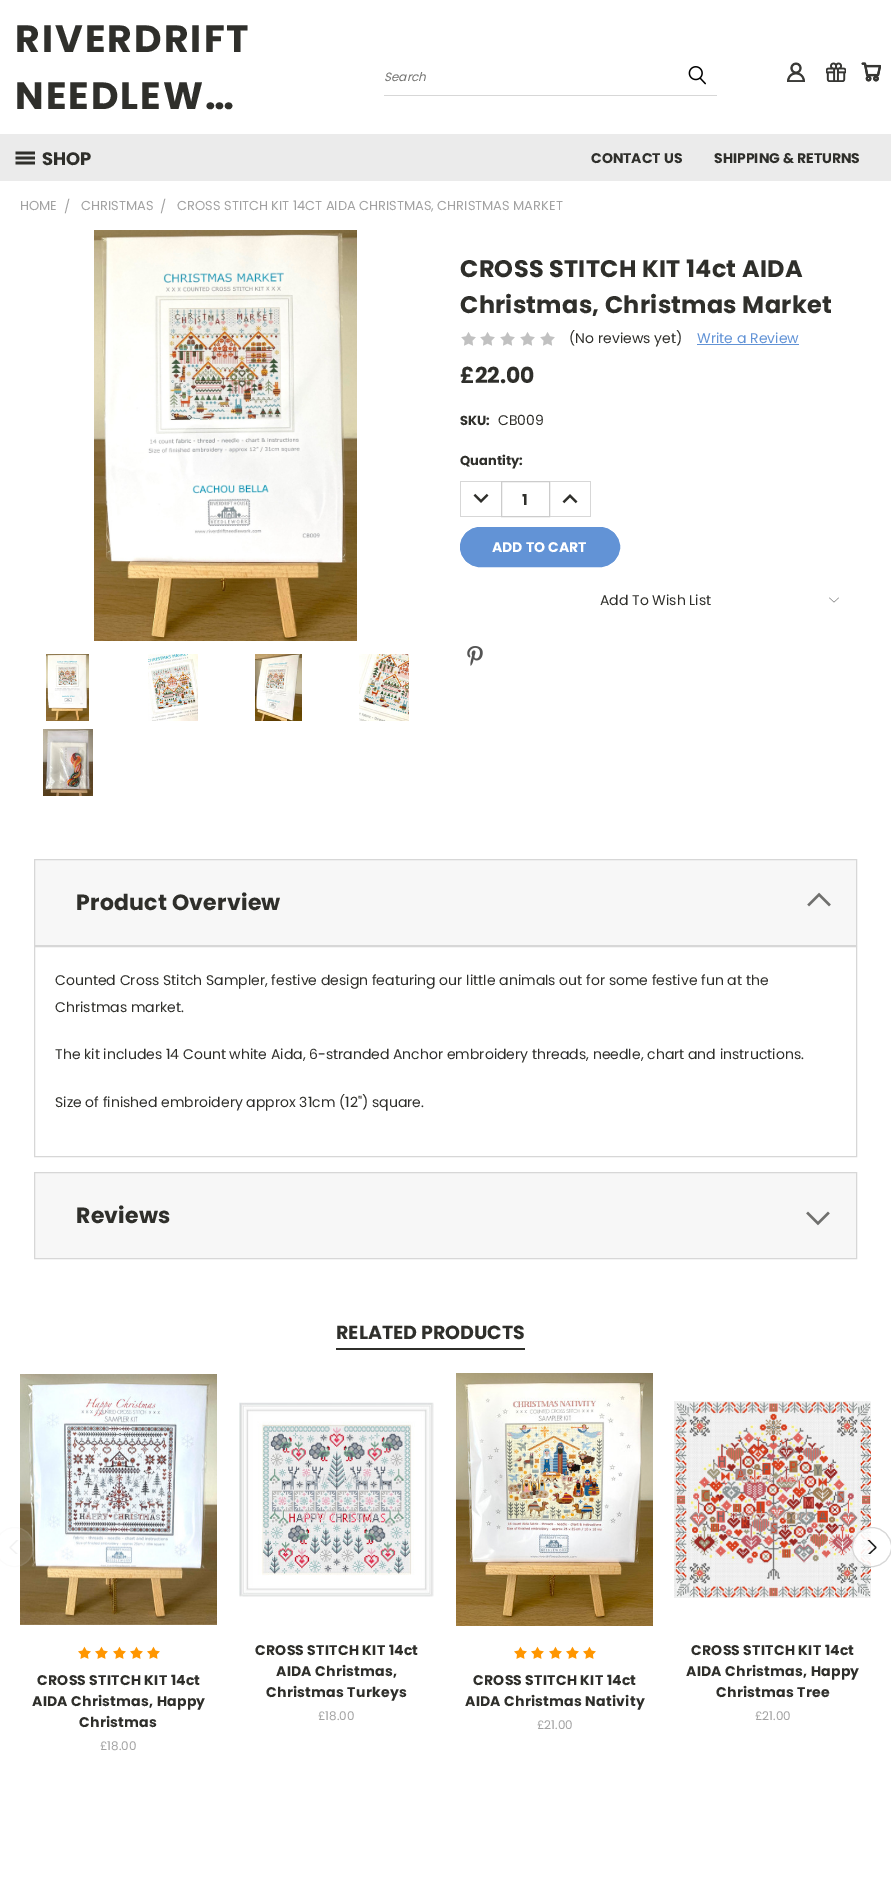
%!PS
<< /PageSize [891 1901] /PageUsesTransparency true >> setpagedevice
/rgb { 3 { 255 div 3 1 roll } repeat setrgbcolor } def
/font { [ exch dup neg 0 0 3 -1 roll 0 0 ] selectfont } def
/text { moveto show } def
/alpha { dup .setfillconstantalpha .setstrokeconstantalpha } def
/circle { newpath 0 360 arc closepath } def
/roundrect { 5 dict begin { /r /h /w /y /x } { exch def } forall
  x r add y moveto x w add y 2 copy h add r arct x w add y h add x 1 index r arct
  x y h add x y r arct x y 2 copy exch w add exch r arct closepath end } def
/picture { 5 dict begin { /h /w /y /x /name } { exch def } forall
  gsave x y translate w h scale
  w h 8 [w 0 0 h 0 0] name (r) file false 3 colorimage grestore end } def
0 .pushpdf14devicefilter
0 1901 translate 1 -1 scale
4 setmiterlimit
255 255 255 rgb
0 0 891 1901 rectfill
215 215 215 rgb
384 95 333 1 rectfill
(img_01.rgb) 688 66 18 19 picture
(img_02.rgb) 787 62 18 20 picture
(img_03.rgb) 826 62 20 20 picture
(img_04.rgb) 861 62 20 20 picture
235 235 235 rgb
0 134 891 47 rectfill
(img_05.rgb) 15 151 20 14 picture
(img_06.rgb) 94 230 263 411 picture
(img_07.rgb) 46 654 43 67 picture
(img_08.rgb) 148 654 50 67 picture
(img_09.rgb) 255 654 47 67 picture
(img_10.rgb) 359 654 50 67 picture
(img_11.rgb) 43 729 50 67 picture
(img_12.rgb) 461 332 15 14 picture
(img_12.rgb) 480 332 15 14 picture
(img_12.rgb) 500 332 15 14 picture
(img_12.rgb) 520 332 15 14 picture
(img_12.rgb) 540 332 15 14 picture
98 147 214 rgb
697 344 102 1 rectfill
215 215 215 rgb
460 481 41 1 rectfill
460 516 41 1 rectfill
460 481 1 36 rectfill
(img_13.rgb) 473 493 16 10 picture
204 204 204 rgb
501.5 481.5 48 35 rectstroke
215 215 215 rgb
550 481 41 1 rectfill
590 481 1 36 rectfill
550 516 41 1 rectfill
(img_14.rgb) 562 494 16 10 picture
98 147 214 rgb
460.5 527.5 159 39 19.5 roundrect gsave fill grestore
stroke
(img_15.rgb) 829 597 10 6 picture
(img_16.rgb) 467 646 16 20 picture
247 247 247 rgb
34.5 859.5 moveto 822 0 rlineto 0 86 rlineto -822 0 rlineto closepath gsave fill grestore
215 215 215 rgb
stroke
(img_17.rgb) 807 892 24 15 picture
34.5 946.5 822 210 rectstroke
247 247 247 rgb
34.5 1172.5 moveto 822 0 rlineto 0 86 rlineto -822 0 rlineto closepath gsave fill grestore
215 215 215 rgb
stroke
(img_18.rgb) 806 1211 24 15 picture
47 47 43 rgb
336 1348 189 2 rectfill
(img_19.rgb) 20 1374 197 251 picture
0.09 alpha
255 255 255 rgb
-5 1527 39 40 19.5 roundrect fill
0.1 alpha
215 215 215 rgb
-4.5 1527.5 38 39 19 roundrect stroke
gsave
9 1540 14 14 rectclip
1 alpha
242 242 242 rgb
1.2 setlinewidth
1 setlinecap
1 setlinejoin
22 1535.5 moveto -12 12 rlineto 12 11.5 rlineto stroke
grestore
1 alpha
(img_20.rgb) 78 1646 13 13 picture
(img_20.rgb) 95 1646 13 13 picture
(img_20.rgb) 113 1646 13 13 picture
(img_20.rgb) 130 1646 13 13 picture
(img_20.rgb) 147 1646 13 13 picture
(img_21.rgb) 239 1402 195 195 picture
(img_22.rgb) 456 1373 197 253 picture
(img_20.rgb) 514 1646 13 13 picture
(img_20.rgb) 531 1646 13 13 picture
(img_20.rgb) 549 1646 13 13 picture
(img_20.rgb) 566 1646 13 13 picture
(img_20.rgb) 583 1646 13 13 picture
(img_23.rgb) 674 1401 197 197 picture
0.9 alpha
255 255 255 rgb
872 1547 19.5 circle fill
1 alpha
215 215 215 rgb
872 1547 19.5 circle stroke
gsave
863 1540 14 14 rectclip
31 31 31 rgb
1.2 setlinewidth
1 setlinecap
1 setlinejoin
864 1535.5 moveto 12 12 rlineto -12 11.5 rlineto stroke
grestore
/Poppins-Bold 38 font
47 47 43 rgb
15 52 moveto 2 0 (RIVERDRIFT) ashow
15 109 moveto 2 0 (NEEDLEW…) ashow
/Poppins-Italic 12 font
112 112 110 rgb
(Search) 384 81 text
/Poppins-Bold 18 font
47 47 43 rgb
(SHOP) 42 165 text
/Poppins-Bold 14 font
(CONTACT US) 591 163 text
(SHIPPING & RETURNS) 714 163 text
/Poppins-Regular 13 font
162 162 162 rgb
(HOME) 20 210 text
(/) 64 211 text
(CHRISTMAS) 81 210 text
(/) 160 211 text
(CROSS STITCH KIT 14CT AIDA CHRISTMAS, CHRISTMAS MARKET) 177 210 text
/Poppins-Bold 24 font
47 47 43 rgb
460 277 moveto 0.25 0 (CROSS STITCH KIT 14ct AIDA) ashow
460 313 moveto 0.25 0 (Christmas, Christmas Market) ashow
/Poppins-Regular 14 font
(\(No reviews yet\)) 569 343 text
98 147 214 rgb
(Write a Review) 697 343 text
/Poppins-Bold 22 font
47 47 43 rgb
(£22.00) 460 383 text
/Poppins-Bold 13 font
(SKU:) 460 425 text
/Poppins-Regular 14 font
(CB009) 498 425 text
/Poppins-Bold 13 font
(Quantity:) 460 465 text
/Poppins-Bold 15 font
(1) 522 505 text
/Poppins-Bold 14 font
255 255 255 rgb
(ADD TO CART) 492 552 text
/Poppins-Regular 14 font
47 47 43 rgb
(Add To Wish List) 600 605 text
/Poppins-Bold 22 font
76 910 moveto 0.25 0 (Product Overview) ashow
/Poppins-Regular 14 font
(Counted Cross Stitch Sampler, festive design featuring our little animals out for some festive fun at the) 55 985 text
(Christmas market.) 55 1012 text
(The kit includes 14 Count white Aida, 6-stranded Anchor embroidery threads, needle, chart and instructions.) 55 1059 text
(Size of finished embroidery approx 31cm \(12"\) square.) 55 1107 text
/Poppins-Bold 22 font
76 1223 moveto 0.25 0 (Reviews) ashow
/Poppins-Bold 19 font
(RELATED PRODUCTS) 336 1339 text
/Poppins-Italic 12 font
209 215 219 rgb
(Quick View) 86 1483 text
202 198 201 rgb
(Add To Cart) 83 1520 text
/Poppins-Bold 14 font
47 47 43 rgb
37 1685 moveto 0.25 0 (CROSS STITCH KIT 14ct) ashow
32 1706 moveto 0.25 0 (AIDA Christmas, Happy) ashow
79 1727 moveto 0.25 0 (Christmas) ashow
/Poppins-Regular 12 font
162 162 162 rgb
(£18.00) 100 1750 text
/Poppins-Italic 12 font
202 206 209 rgb
(Quick View) 304 1483 text
214 190 195 rgb
(Add To Cart) 301 1520 text
/Poppins-Bold 14 font
47 47 43 rgb
255 1655 moveto 0.25 0 (CROSS STITCH KIT 14ct) ashow
276 1676 moveto 0.25 0 (AIDA Christmas,) ashow
266 1697 moveto 0.25 0 (Christmas Turkeys) ashow
/Poppins-Regular 12 font
162 162 162 rgb
(£18.00) 318 1720 text
/Poppins-Italic 12 font
211 186 156 rgb
(Quick View) 522 1483 text
209 205 179 rgb
(Add To Cart) 519 1520 text
/Poppins-Bold 14 font
47 47 43 rgb
473 1685 moveto 0.25 0 (CROSS STITCH KIT 14ct) ashow
465 1706 moveto 0.25 0 (AIDA Christmas Nativity) ashow
/Poppins-Regular 12 font
162 162 162 rgb
(£21.00) 537 1729 text
/Poppins-Italic 12 font
212 176 169 rgb
(Quick View) 740 1483 text
194 164 155 rgb
(Add To Cart) 737 1520 text
/Poppins-Bold 14 font
47 47 43 rgb
691 1655 moveto 0.25 0 (CROSS STITCH KIT 14ct) ashow
686 1676 moveto 0.25 0 (AIDA Christmas, Happy) ashow
716 1697 moveto 0.25 0 (Christmas Tree) ashow
/Poppins-Regular 12 font
162 162 162 rgb
(£21.00) 755 1720 text
.poppdf14devicefilter showpage
